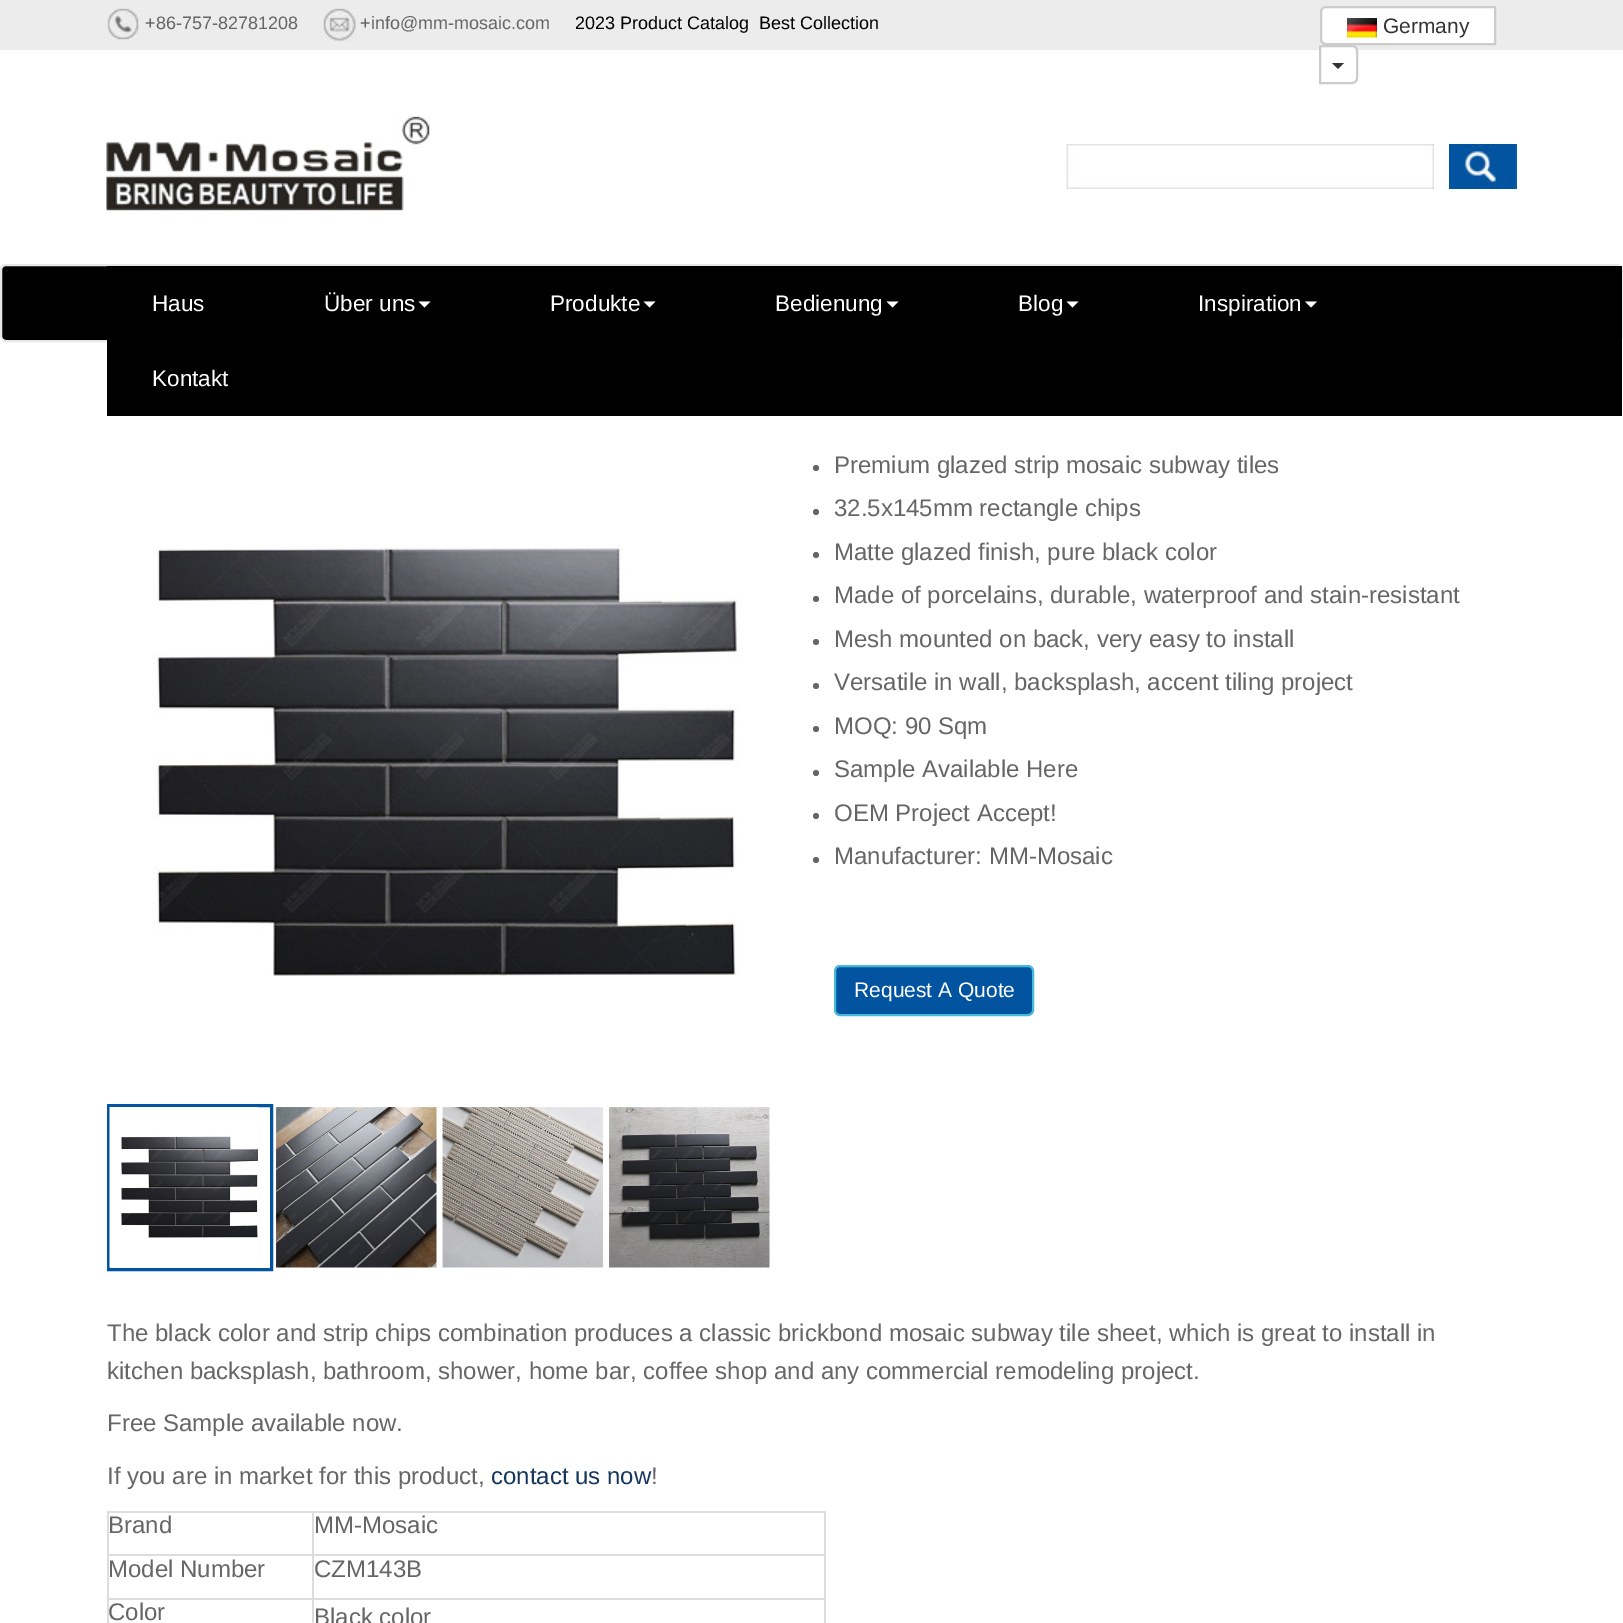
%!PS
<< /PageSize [1623 1623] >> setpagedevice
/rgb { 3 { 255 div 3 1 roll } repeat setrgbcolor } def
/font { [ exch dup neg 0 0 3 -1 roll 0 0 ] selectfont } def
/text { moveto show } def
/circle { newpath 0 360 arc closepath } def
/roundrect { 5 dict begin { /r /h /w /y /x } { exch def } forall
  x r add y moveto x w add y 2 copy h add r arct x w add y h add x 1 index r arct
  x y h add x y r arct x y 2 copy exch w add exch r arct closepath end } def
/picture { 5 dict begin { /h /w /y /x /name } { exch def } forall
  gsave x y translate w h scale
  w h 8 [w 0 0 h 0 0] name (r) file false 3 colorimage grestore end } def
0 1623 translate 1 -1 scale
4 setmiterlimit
255 255 255 rgb
0 0 1623 1623 rectfill
236 236 236 rgb
0 0 1623 50 rectfill
(img_01.rgb) 107 8 33 33 picture
(img_02.rgb) 323 7 33 34 picture
255 255 255 rgb
1326 7 moveto 169 0 rlineto 0 37 rlineto -169 0 rlineto -3 0 -5 -2 -5 -5 rcurveto 0 -27 rlineto 0 -3 2 -5 5 -5 rcurveto closepath gsave fill grestore
204 204 204 rgb
2 setlinewidth
stroke
(img_03.rgb) 1347 18 30 20 picture
255 255 255 rgb
1320 46 moveto 32 0 rlineto 3 0 5 2 5 5 rcurveto 0 27 rlineto 0 3 -2 5 -5 5 rcurveto -32 0 rlineto closepath gsave fill grestore
204 204 204 rgb
stroke
51 51 51 rgb
1332 63 moveto 12 0 rlineto -6 6 rlineto closepath fill
(img_04.rgb) 106 116 324 95 picture
(img_05.rgb) 1066 144 368 45 picture
2 84 160 rgb
1449 144 68 45 rectfill
(img_06.rgb) 1461 144 56 45 picture
0 0 0 rgb
1 265 1621 76 5 roundrect gsave fill grestore
231 231 231 rgb
stroke
0 0 0 rgb
107 266 1515 150 rectfill
255 255 255 rgb
418.5 301.5 moveto 12 0 rlineto -6 6 rlineto closepath fill
643.5 301.5 moveto 12 0 rlineto -6 6 rlineto closepath fill
886.5 301.5 moveto 12 0 rlineto -6 6 rlineto closepath fill
1066.5 301.5 moveto 12 0 rlineto -6 6 rlineto closepath fill
1305 301.5 moveto 12 0 rlineto -6 6 rlineto closepath fill
(img_07.rgb) 153 545 586 431 picture
2 84 160 rgb
3 setlinewidth
108.5 1105.5 163 164 rectstroke
(img_08.rgb) 109 1107 149 161 picture
(img_09.rgb) 276 1107 161 161 picture
(img_10.rgb) 442 1107 161 161 picture
(img_11.rgb) 609 1107 161 161 picture
102 102 102 rgb
816 468 3 circle fill
816 512 3 circle fill
816 555 3 circle fill
816 599 3 circle fill
816 642 3 circle fill
816 686 3 circle fill
816 729 3 circle fill
816 773 3 circle fill
816 816 3 circle fill
816 860 3 circle fill
2 84 160 rgb
835 966 198 49 5 roundrect gsave fill grestore
70 184 218 rgb
2 setlinewidth
stroke
221 221 221 rgb
107 1511 718 2 rectfill
824 1511 2 112 rectfill
107 1511 2 112 rectfill
312 1554 513 2 rectfill
312 1598 513 2 rectfill
312 1598 2 25 rectfill
107 1598 207 2 rectfill
312 1554 2 45 rectfill
107 1554 207 2 rectfill
312 1511 2 45 rectfill
/LiberationSans-Regular 18 font
102 102 102 rgb
(+86-757-82781208) 145 29 text
(+info@mm-mosaic.com) 360 29 text
0 0 0 rgb
(2023 Product Catalog) 575 29 text
(Best Collection) 759 29 text
/LiberationSans-Regular 21 font
51 51 51 rgb
(Germany) 1383 33 text
/LiberationSans-Regular 22.5 font
255 255 255 rgb
(Haus) 152 311 text
(Über uns) 324 311 text
(Produkte) 550 311 text
(Bedienung) 775 311 text
(Blog) 1018 311 text
(Inspiration) 1198 311 text
(Kontakt) 152 386 text
/LiberationSans-Regular 24 font
102 102 102 rgb
(Premium glazed strip mosaic subway tiles) 834 473 text
(32.5x145mm rectangle chips) 834 516 text
(Matte glazed finish, pure black color) 834 560 text
(Made of porcelains, durable, waterproof and stain-resistant) 834 603 text
(Mesh mounted on back, very easy to install) 834 647 text
(Versatile in wall, backsplash, accent tiling project) 834 690 text
(MOQ: 90 Sqm) 834 734 text
(Sample Available Here) 834 777 text
(OEM Project Accept!) 834 821 text
(Manufacturer: MM-Mosaic) 834 864 text
/LiberationSans-Regular 21 font
255 255 255 rgb
(Request A Quote) 854 997 text
/LiberationSans-Regular 24 font
102 102 102 rgb
(The black color and strip chips combination produces a classic brickbond mosaic subway tile sheet, which is great to install in) 107 1341 text
(kitchen backsplash, bathroom, shower, home bar, coffee shop and any commercial remodeling project.) 107 1379 text
(Free Sample available now.) 107 1431 text
(If you are in market for this product,) 107 1484 text
23 54 93 rgb
(contact us now) 491 1484 text
102 102 102 rgb
(!) 651 1484 text
(Brand) 108 1533 text
(MM-Mosaic) 314 1533 text
(Model Number) 108 1577 text
(CZM143B) 314 1577 text
(Color) 108 1620 text
(Black color) 314 1625 text
showpage
